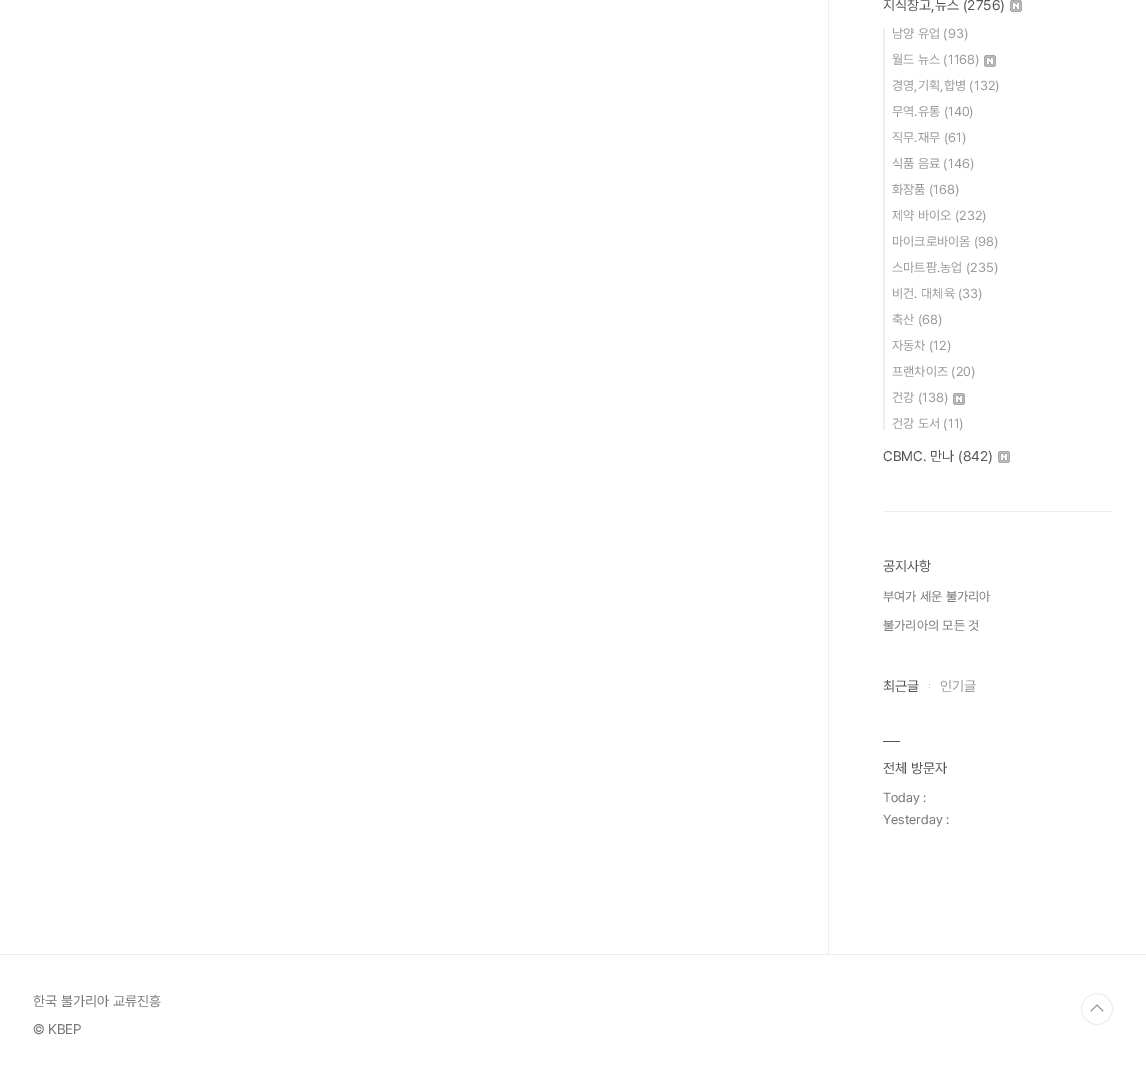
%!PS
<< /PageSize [1146 1076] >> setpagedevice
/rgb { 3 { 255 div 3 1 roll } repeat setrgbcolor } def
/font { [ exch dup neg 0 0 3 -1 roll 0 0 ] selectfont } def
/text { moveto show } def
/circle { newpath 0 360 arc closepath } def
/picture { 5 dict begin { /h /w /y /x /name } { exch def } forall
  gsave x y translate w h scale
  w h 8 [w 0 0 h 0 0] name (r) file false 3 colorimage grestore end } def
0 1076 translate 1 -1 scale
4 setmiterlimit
255 255 255 rgb
0 0 1146 1076 rectfill
238 238 238 rgb
828 0 1 954 rectfill
(img_01.rgb) 1010 0 12 12 picture
883 28 2 402 rectfill
(img_01.rgb) 984 55 12 12 picture
(img_01.rgb) 953 393 12 12 picture
(img_01.rgb) 998 451 12 12 picture
883 511 230 1 rectfill
(img_02.rgb) 929 684 1 4 picture
85 85 85 rgb
883 741 17 1 rectfill
238 238 238 rgb
0 954 1146 1 rectfill
(img_03.rgb) 1090 1004 14 8 picture
1097 1009 15.5 circle stroke
/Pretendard-Regular 14 font
85 85 85 rgb
(지식창고,뉴스 \(2756\)) 883 10 text
/Pretendard-Regular 13 font
153 153 153 rgb
(남양 유업 \(93\)) 892 38 text
(월드 뉴스 \(1168\)) 892 64 text
(경영,기획,합병 \(132\)) 892 90 text
(무역.유통 \(140\)) 892 116 text
(직무.재무 \(61\)) 892 142 text
(식품 음료 \(146\)) 892 168 text
(화장품 \(168\)) 892 194 text
(제약 바이오 \(232\)) 892 220 text
(마이크로바이옴 \(98\)) 892 246 text
(스마트팜.농업 \(235\)) 892 272 text
(비건. 대체육 \(33\)) 892 298 text
(축산 \(68\)) 892 324 text
(자동차 \(12\)) 892 350 text
(프랜차이즈 \(20\)) 892 376 text
(건강 \(138\)) 892 402 text
(건강 도서 \(11\)) 892 428 text
/Pretendard-Regular 14 font
85 85 85 rgb
(CBMC. 만나 \(842\)) 883 461 text
(공지사항) 883 571 text
/Pretendard-Regular 13 font
119 119 119 rgb
(부여가 세운 불가리아) 883 601 text
(불가리아의 모든 것) 883 630 text
/Pretendard-Regular 14 font
85 85 85 rgb
(최근글) 883 691 text
153 153 153 rgb
(인기글) 940 691 text
85 85 85 rgb
(전체 방문자) 883 773 text
/Pretendard-Regular 13 font
119 119 119 rgb
(Today :) 883 802 text
(Yesterday :) 883 824 text
/Pretendard-Regular 14 font
(한국 불가리아 교류진흥) 33 1006 text
(© KBEP) 33 1034 text
showpage
